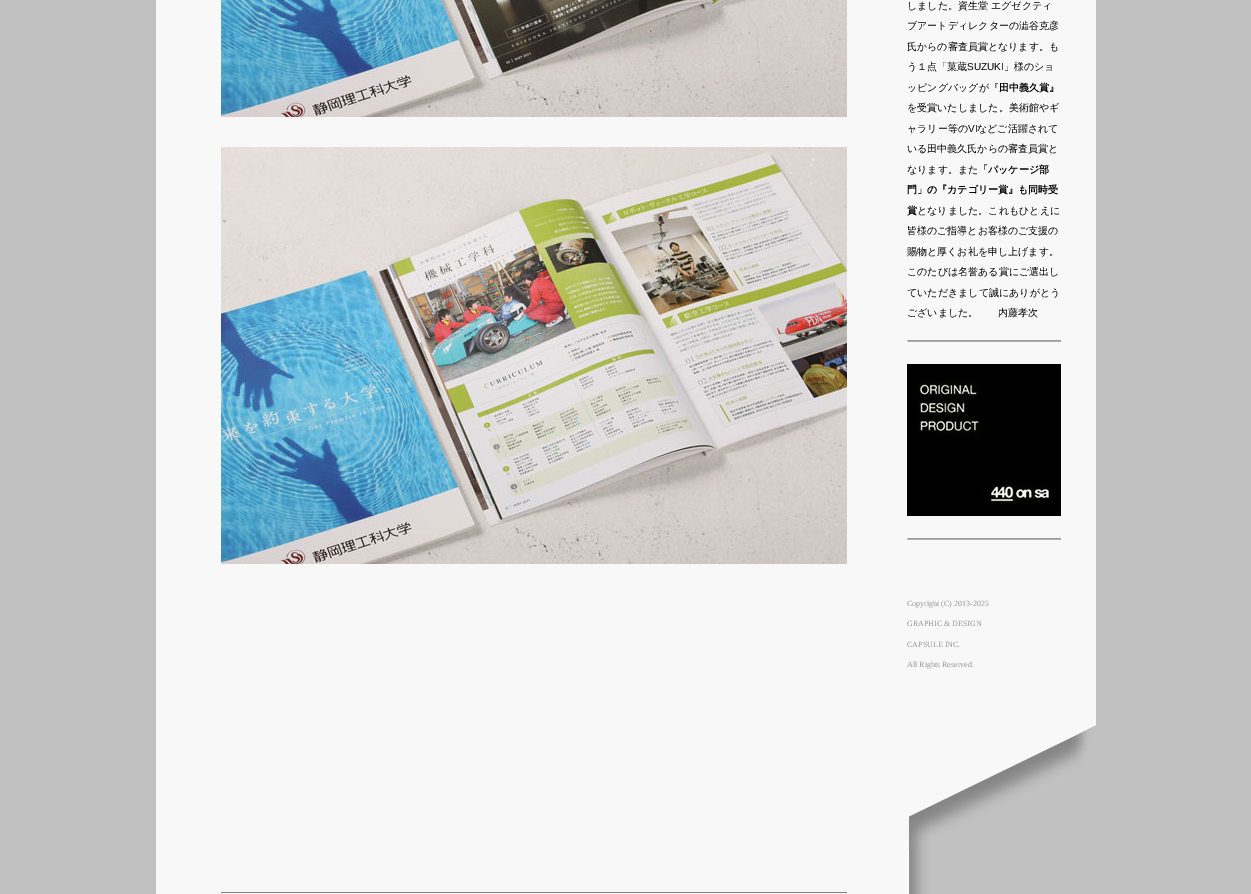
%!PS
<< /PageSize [1251 894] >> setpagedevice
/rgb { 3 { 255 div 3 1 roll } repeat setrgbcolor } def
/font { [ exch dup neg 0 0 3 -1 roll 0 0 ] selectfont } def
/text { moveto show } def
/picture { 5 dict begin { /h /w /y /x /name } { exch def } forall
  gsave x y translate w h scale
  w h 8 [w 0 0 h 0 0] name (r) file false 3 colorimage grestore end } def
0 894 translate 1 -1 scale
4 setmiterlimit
193 193 193 rgb
0 0 1251 894 rectfill
248 248 248 rgb
156 0 751 894 rectfill
(img_01.rgb) 907 851 189 43 picture
(img_02.rgb) 221 0 626 117 picture
(img_03.rgb) 221 147 626 417 picture
907 0 189 851 rectfill
(img_04.rgb) 907 340 154 2 picture
(img_05.rgb) 907 364 154 152 picture
(img_04.rgb) 907 538 154 2 picture
(img_06.rgb) 909 725 187 126 picture
128 128 128 rgb
221 892 626 1 rectfill
/WenQuanYiZenHei-Medium 10 font
0 0 0 rgb
(しました。資生堂 エグゼクティ) 907 9 text
(ブアートディレクターの澁谷克彦) 907 29 text
(氏からの審査員賞となります。も) 907 50 text
(う１点「菓蔵) 907 70 text
/LiberationSans-Regular 10 font
(SUZUKI) 967 70 text
/WenQuanYiZenHei-Medium 10 font
(」様のショ) 1004 70 text
(ッピングバッグが『) 907 91 text
/WenQuanYiZenHei-Bold 10 font
(田中義久賞』) 999 91 text
/WenQuanYiZenHei-Medium 10 font
(を受賞いたしました。美術館やギ) 907 111 text
(ャラリー等の) 907 132 text
/LiberationSans-Regular 10 font
(VI) 968 132 text
/WenQuanYiZenHei-Medium 10 font
(などご活躍されて) 977 132 text
(いる田中義久氏からの審査員賞と) 907 152 text
(なります。また) 907 173 text
/WenQuanYiZenHei-Bold 10 font
(「パッケージ部) 978 173 text
(門」の『カテゴリー賞』も同時受) 907 193 text
(賞) 907 214 text
/WenQuanYiZenHei-Medium 10 font
(となりました。これもひとえに) 917 214 text
(皆様のご指導とお客様のご支援の) 907 234 text
(賜物と厚くお礼を申し上げます。) 907 255 text
(このたびは名誉ある賞にご選出し) 907 275 text
(ていただきまして誠にありがとう) 907 296 text
(ございました。　　内藤孝次) 907 316 text
/LiberationSerif-Regular 8 font
153 153 153 rgb
(Copyright \(C\) 2013-2025) 907 606 text
(GRAPHIC & DESIGN) 907 626 text
(CAPSULE INC.) 907 647 text
(All Rights Reserved.) 907 667 text
showpage
